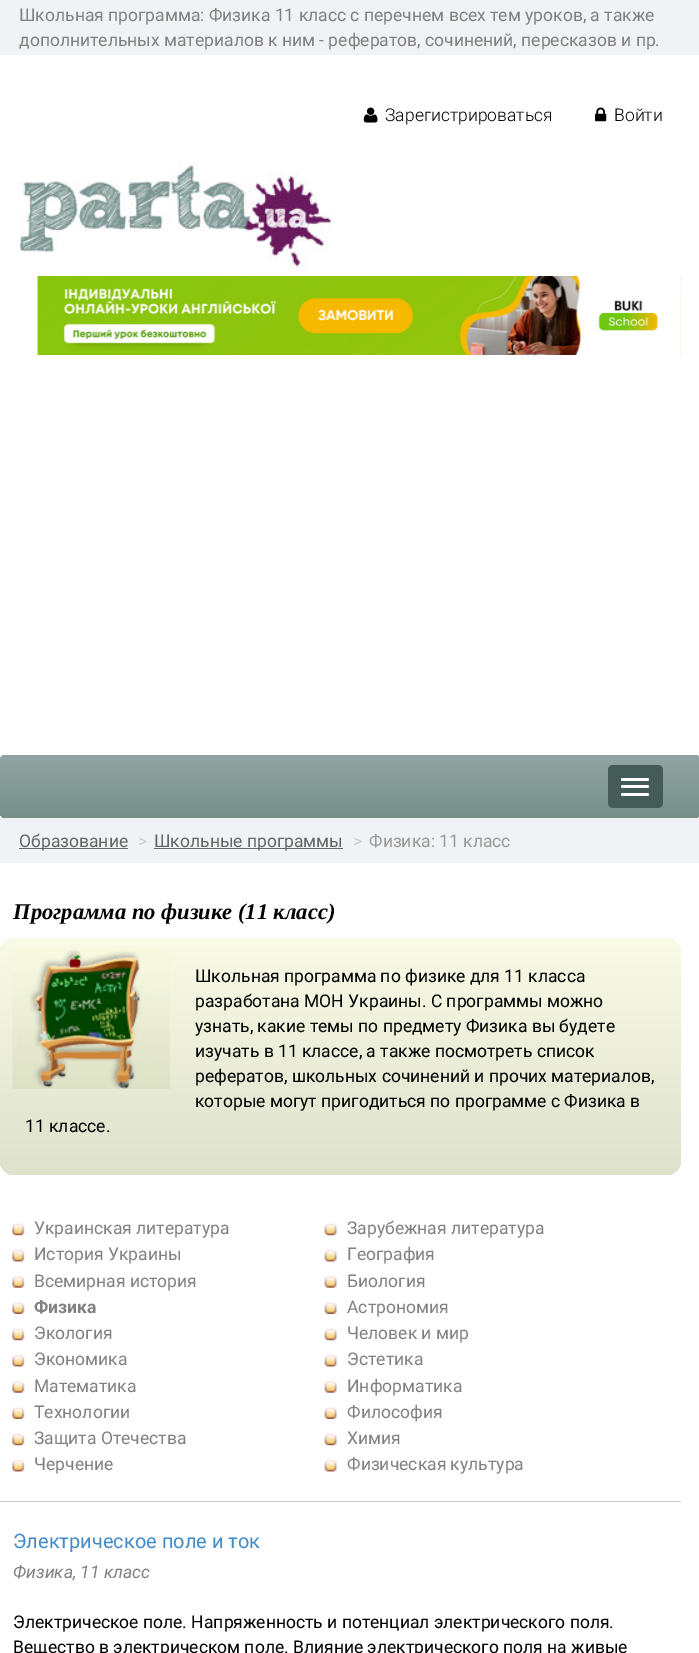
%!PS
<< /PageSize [699 1653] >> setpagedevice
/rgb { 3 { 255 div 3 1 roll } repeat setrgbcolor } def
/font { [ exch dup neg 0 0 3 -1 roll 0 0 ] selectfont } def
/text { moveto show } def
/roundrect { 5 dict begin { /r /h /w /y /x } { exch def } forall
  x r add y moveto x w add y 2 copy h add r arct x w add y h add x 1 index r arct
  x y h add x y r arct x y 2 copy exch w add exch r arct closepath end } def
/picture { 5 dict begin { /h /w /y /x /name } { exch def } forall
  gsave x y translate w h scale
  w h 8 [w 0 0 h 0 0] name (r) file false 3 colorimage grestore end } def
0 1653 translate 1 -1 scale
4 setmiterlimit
255 255 255 rgb
0 0 699 1653 rectfill
241 242 246 rgb
0 0 699 55 rectfill
(img_01.rgb) 363 107 15 16 picture
(img_02.rgb) 595 107 12 15 picture
(img_03.rgb) 19 161 313 109 picture
(img_04.rgb) 36 276 646 79 picture
gsave 0 755 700 63 6 roundrect clip newpath
<< /ShadingType 2 /ColorSpace /DeviceRGB /Coords [350 755 350 818] /Extend [true true] /Function << /FunctionType 2 /Domain [0 1] /C0 [0.569 0.647 0.635] /C1 [0.471 0.561 0.533] /N 1 >> >> shfill grestore
68 91 88 rgb
608 765 55 43 5 roundrect fill
255 255 255 rgb
621 778 28 3 1.5 roundrect fill
621 785 28 3 1.5 roundrect fill
621 793 28 3 1.5 roundrect fill
241 242 246 rgb
0 818 699 45 rectfill
102 102 102 rgb
19 848 109 1 rectfill
154 848 189 1 rectfill
gsave 0 938 681 237 15 roundrect clip newpath
<< /ShadingType 2 /ColorSpace /DeviceRGB /Coords [341 938 341 1175] /Extend [true true] /Function << /FunctionType 2 /Domain [0 1] /C0 [0.976 0.984 0.902] /C1 [0.871 0.882 0.796] /N 1 >> >> shfill grestore
(img_05.rgb) 12 950 158 139 picture
202 207 212 rgb
0 1501 681 1 rectfill
(img_06.rgb) 12 1223 13 13 picture
(img_07.rgb) 324 1223 13 13 picture
(img_08.rgb) 12 1249 13 13 picture
(img_09.rgb) 324 1249 13 13 picture
(img_10.rgb) 12 1275 13 13 picture
(img_11.rgb) 324 1275 13 13 picture
(img_12.rgb) 12 1302 13 12 picture
(img_13.rgb) 324 1302 13 12 picture
(img_14.rgb) 12 1328 13 13 picture
(img_15.rgb) 324 1328 13 13 picture
(img_08.rgb) 12 1354 13 13 picture
(img_09.rgb) 324 1354 13 13 picture
(img_10.rgb) 12 1380 13 13 picture
(img_11.rgb) 324 1380 13 13 picture
(img_12.rgb) 12 1407 13 12 picture
(img_13.rgb) 324 1407 13 12 picture
(img_14.rgb) 12 1433 13 13 picture
(img_15.rgb) 324 1433 13 13 picture
(img_08.rgb) 12 1459 13 13 picture
(img_09.rgb) 324 1459 13 13 picture
/Roboto-Regular 17.5 font
129 129 129 rgb
(Школьная программа: Физика 11 класс с перечнем всех тем уроков, а также) 19 21 text
(дополнительных материалов к ним - рефератов, сочинений, пересказов и пр.) 19 46 text
/Roboto-Light 17.5 font
0 0 0 rgb
(Зарегистрироваться) 385 121 text
(Войти) 614 121 text
/Roboto-Regular 17.5 font
102 102 102 rgb
(Образование) 19 847 text
204 204 204 rgb
(>) 138 847 text
102 102 102 rgb
(Школьные программы) 154 847 text
204 204 204 rgb
(>) 353 847 text
153 153 153 rgb
(Физика: 11 класс) 369 847 text
/LiberationSerif-BoldItalic 22.5 font
0 0 0 rgb
(Программа по физике \(11 класс\)) 13 919 text
/Roboto-Regular 17.5 font
(Школьная программа по физике для 11 класса) 195 982 text
(разработана МОН Украины. С программы можно) 195 1007 text
(узнать, какие темы по предмету Физика вы будете) 195 1032 text
(изучать в 11 классе, а также посмотреть список) 195 1057 text
(рефератов, школьных сочинений и прочих материалов,) 195 1082 text
(которые могут пригодиться по программе с Физика в) 195 1107 text
(11 классе.) 25 1132 text
129 129 129 rgb
(Украинская литература) 34 1234 text
(Зарубежная литература) 347 1234 text
(История Украины) 34 1260 text
(География) 347 1260 text
(Всемирная история) 34 1287 text
(Биология) 347 1287 text
/Roboto-Bold 17.5 font
(Физика) 34 1313 text
/Roboto-Regular 17.5 font
(Астрономия) 347 1313 text
(Экология) 34 1339 text
(Человек и мир) 347 1339 text
(Экономика) 34 1365 text
(Эстетика) 347 1365 text
(Математика) 34 1392 text
(Информатика) 347 1392 text
(Технологии) 34 1418 text
(Философия) 347 1418 text
(Защита Отечества) 34 1444 text
(Химия) 347 1444 text
(Черчение) 34 1470 text
(Физическая культура) 347 1470 text
/Roboto-Regular 20 font
66 139 202 rgb
(Электрическое поле и ток) 13 1548 text
/Roboto-Italic 17.5 font
129 129 129 rgb
(Физика, 11 класс) 13 1578 text
/Roboto-Regular 17.5 font
0 0 0 rgb
(Электрическое поле. Напряженность и потенциал электрического поля.) 13 1628 text
(Вещество в электрическом поле. Влияние электрического поля на живые) 13 1653 text
showpage
